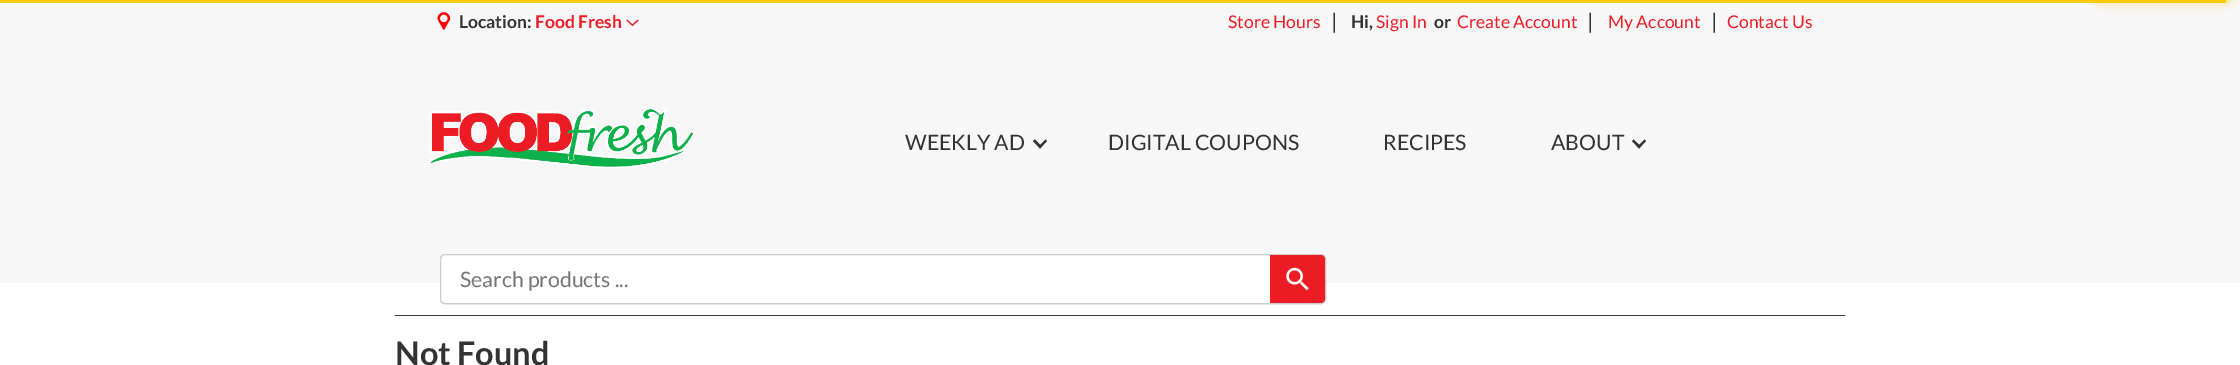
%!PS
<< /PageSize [2240 365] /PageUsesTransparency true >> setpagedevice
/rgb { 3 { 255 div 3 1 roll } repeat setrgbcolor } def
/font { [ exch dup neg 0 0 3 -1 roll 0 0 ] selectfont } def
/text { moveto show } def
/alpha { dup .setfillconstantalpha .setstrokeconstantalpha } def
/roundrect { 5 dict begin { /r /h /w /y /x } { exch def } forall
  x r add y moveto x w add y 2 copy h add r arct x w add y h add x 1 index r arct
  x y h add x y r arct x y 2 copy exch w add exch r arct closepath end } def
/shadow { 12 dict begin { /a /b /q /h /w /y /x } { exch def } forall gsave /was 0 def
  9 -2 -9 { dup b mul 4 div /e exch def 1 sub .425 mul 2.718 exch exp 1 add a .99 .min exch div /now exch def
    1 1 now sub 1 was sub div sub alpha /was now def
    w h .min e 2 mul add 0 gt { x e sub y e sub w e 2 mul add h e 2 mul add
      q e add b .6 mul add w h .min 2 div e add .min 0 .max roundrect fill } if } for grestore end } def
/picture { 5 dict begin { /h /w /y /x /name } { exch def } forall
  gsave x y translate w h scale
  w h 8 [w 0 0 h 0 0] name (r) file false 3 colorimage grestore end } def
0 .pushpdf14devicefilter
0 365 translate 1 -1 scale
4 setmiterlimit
255 255 255 rgb
0 0 2240 365 rectfill
247 247 247 rgb
0 0 2240 283 rectfill
250 201 1 rgb
0 0 2226 3 rectfill
2101 -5 125 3 0 3 1 shadow
2101 -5 125 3 0 6.5 1 shadow
(img_01.rgb) 437 12 14 18 picture
(img_02.rgb) 626 19 13 8 picture
(img_03.rgb) 428 107 267 61 picture
51 51 51 rgb
1047 141 moveto -7 7.5 rlineto -1.5 -2 rlineto 7 -7 rlineto closepath fill
1042 146.5 moveto -2 2 rlineto -7 -7.5 rlineto 2 -1.5 rlineto closepath fill
1646 141 moveto -7 7.5 rlineto -1.5 -2 rlineto 7 -7 rlineto closepath fill
1641 146.5 moveto -2 2 rlineto -7 -7.5 rlineto 1.5 -1.5 rlineto closepath fill
59 59 59 rgb
395 315 1450 1 rectfill
204 204 204 rgb
440.5 254.5 885 49 4.5 roundrect stroke
255 255 255 rgb
440.5 254.5 885 49 4.5 roundrect gsave fill grestore
204 204 204 rgb
stroke
237 28 36 rgb
1270 255 moveto 51 0 rlineto 2 0 4 2 4 4 rcurveto 0 40 rlineto 0 2 -2 4 -4 4 rcurveto -51 0 rlineto closepath fill
(img_04.rgb) 1286 267 23 24 picture
/Lato-Bold 17.5 font
51 51 51 rgb
(Location:) 459 28 text
237 28 36 rgb
(Food Fresh) 535 28 text
/Lato-Regular 17.5 font
(Store Hours) 1228 28 text
/Lato-Regular 21.25 font
51 51 51 rgb
(|) 1331 29 text
/Lato-Bold 17.5 font
(Hi,) 1351 28 text
/Lato-Regular 17.5 font
237 28 36 rgb
(Sign In) 1376 28 text
/Lato-Bold 17.5 font
51 51 51 rgb
(or) 1434 28 text
/Lato-Regular 17.5 font
237 28 36 rgb
(Create Account) 1457 28 text
/Lato-Regular 21.25 font
51 51 51 rgb
(|) 1587 29 text
/Lato-Regular 17.5 font
237 28 36 rgb
(My Account) 1608 28 text
/Lato-Regular 21.25 font
51 51 51 rgb
(|) 1711 29 text
/Lato-Regular 17.5 font
237 28 36 rgb
(Contact Us) 1727 28 text
/Lato-Regular 21.25 font
51 51 51 rgb
(WEEKLY AD) 905 150 text
(DIGITAL COUPONS) 1108 150 text
(RECIPES) 1383 150 text
(ABOUT) 1551 150 text
117 117 117 rgb
(Search products ...) 460 287 text
/Lato-Bold 32.5 font
51 51 51 rgb
(Not Found) 395 365 text
.poppdf14devicefilter showpage
